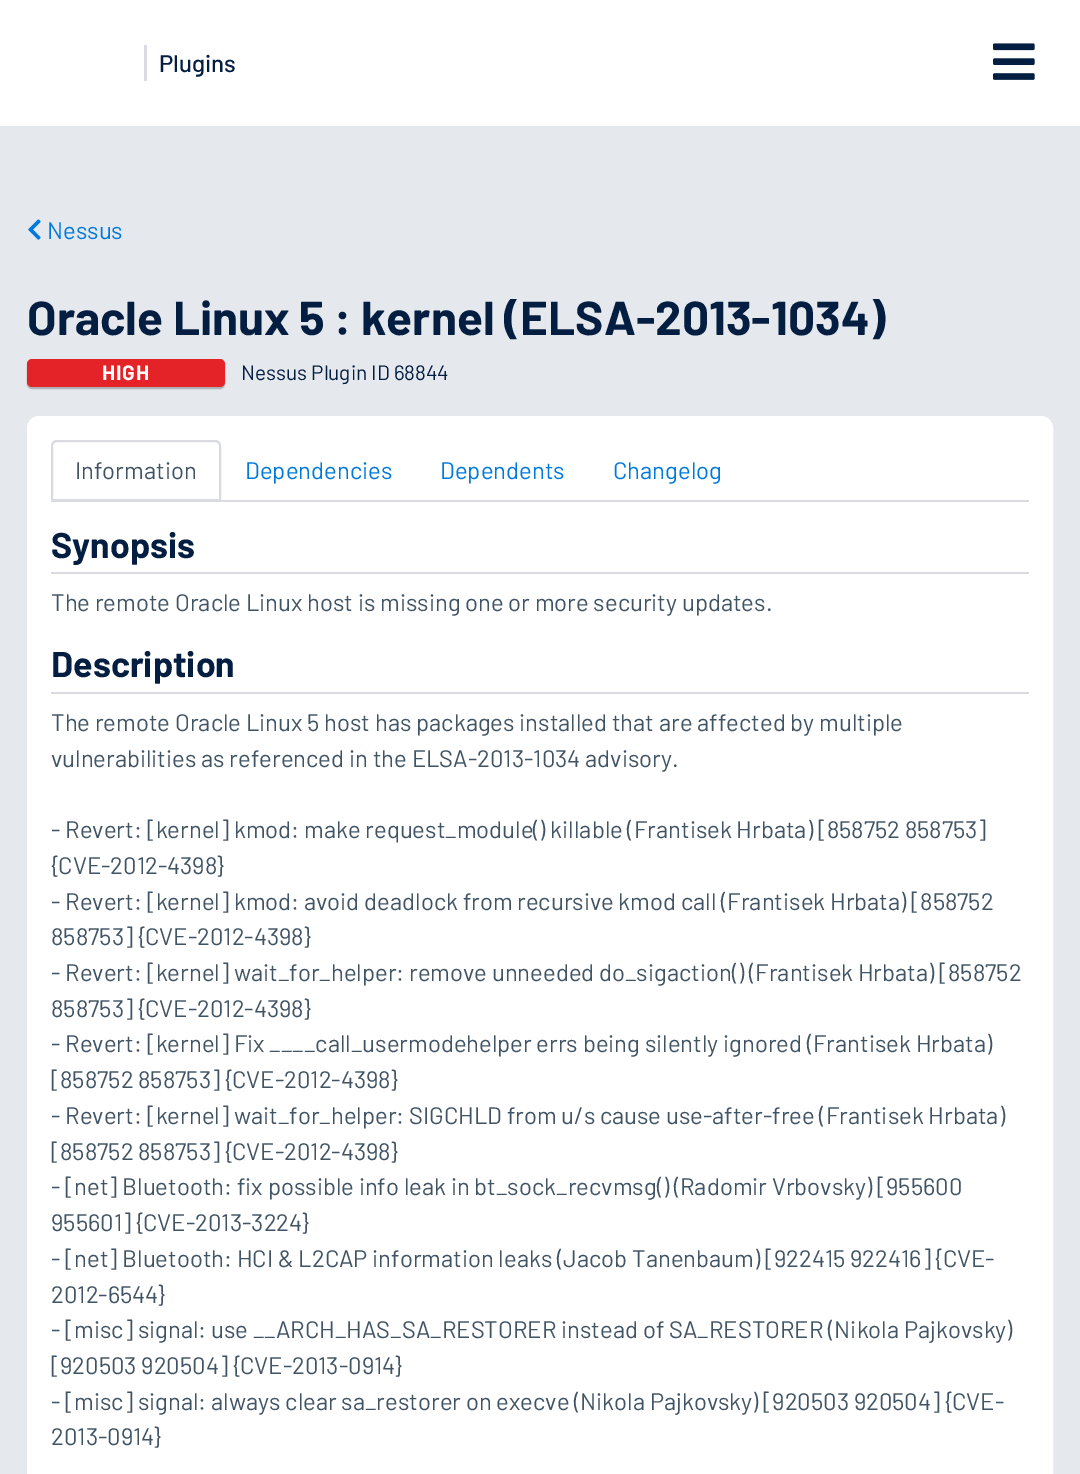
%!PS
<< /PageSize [1080 1474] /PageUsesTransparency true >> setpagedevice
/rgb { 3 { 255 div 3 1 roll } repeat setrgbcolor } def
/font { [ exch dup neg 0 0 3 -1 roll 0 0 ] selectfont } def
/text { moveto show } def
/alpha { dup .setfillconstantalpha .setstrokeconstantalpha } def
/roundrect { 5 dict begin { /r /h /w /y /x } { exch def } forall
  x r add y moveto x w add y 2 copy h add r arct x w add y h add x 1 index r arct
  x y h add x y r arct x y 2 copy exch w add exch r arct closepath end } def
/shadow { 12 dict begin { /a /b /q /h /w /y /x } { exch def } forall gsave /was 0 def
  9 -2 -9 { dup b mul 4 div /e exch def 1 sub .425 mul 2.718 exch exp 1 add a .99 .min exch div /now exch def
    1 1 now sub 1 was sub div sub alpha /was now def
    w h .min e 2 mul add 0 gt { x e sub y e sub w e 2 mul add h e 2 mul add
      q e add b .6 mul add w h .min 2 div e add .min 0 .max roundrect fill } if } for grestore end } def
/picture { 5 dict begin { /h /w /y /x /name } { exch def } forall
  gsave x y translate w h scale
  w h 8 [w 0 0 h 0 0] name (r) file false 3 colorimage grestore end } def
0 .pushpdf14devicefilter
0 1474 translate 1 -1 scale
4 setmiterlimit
255 255 255 rgb
0 0 1080 1474 rectfill
217 219 224 rgb
144 45 3 36 rectfill
(img_01.rgb) 993 43 42 37 picture
229 233 237 rgb
0 126 1080 1348 rectfill
(img_02.rgb) 28 219 13 21 picture
0 0 0 rgb
27 360 198 29 5 0.5 0.25 shadow
228 35 41 rgb
27 359 198 28 5 roundrect fill
255 255 255 rgb
28 417 1024 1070 11 roundrect gsave fill grestore
2 setlinewidth
stroke
217 219 224 rgb
51 500 978 2 rectfill
255 255 255 rgb
57 441 moveto 158 0 rlineto 3 0 5 2 5 5 rcurveto 0 54 rlineto -168 0 rlineto 0 -54 rlineto 0 -3 2 -5 5 -5 rcurveto closepath gsave fill grestore
217 219 224 rgb
stroke
51 572 978 2 rectfill
51 692 978 2 rectfill
/Barlow-Medium 24 font
4 30 66 rgb
(Plugins) 159 72 text
/Barlow-Regular 23.8 font
0 121 221 rgb
(Nessus) 47 239 text
/Barlow-Bold 47.6 font
4 30 66 rgb
(Oracle Linux 5 : kernel \(ELSA-2013-1034\)) 27 335 text
/Barlow-Bold 20.75 font
255 255 255 rgb
102 380 moveto 1 0 (HIGH) ashow
/Barlow-Regular 20.75 font
4 30 66 rgb
(Nessus Plugin ID 68844) 241 380 text
/Barlow-Regular 23.8 font
65 84 101 rgb
(Information) 75 479 text
0 121 221 rgb
(Dependencies) 245 479 text
(Dependents) 440 479 text
(Changelog) 613 479 text
/Barlow-Bold 35.75 font
4 30 66 rgb
(Synopsis) 51 558 text
/Barlow-Regular 23.8 font
65 84 101 rgb
(The remote Oracle Linux host is missing one or more security updates.) 51 611 text
/Barlow-Bold 35.75 font
4 30 66 rgb
(Description) 51 677 text
/Barlow-Regular 23.8 font
65 84 101 rgb
(The remote Oracle Linux 5 host has packages installed that are affected by multiple) 51 731 text
(vulnerabilities as referenced in the ELSA-2013-1034 advisory.) 51 767 text
(- Revert: [kernel] kmod: make request_module\(\) killable \(Frantisek Hrbata\) [858752 858753]) 51 838 text
({CVE-2012-4398}) 51 874 text
(- Revert: [kernel] kmod: avoid deadlock from recursive kmod call \(Frantisek Hrbata\) [858752) 51 910 text
(858753] {CVE-2012-4398}) 51 945 text
(- Revert: [kernel] wait_for_helper: remove unneeded do_sigaction\(\) \(Frantisek Hrbata\) [858752) 51 981 text
(858753] {CVE-2012-4398}) 51 1017 text
(- Revert: [kernel] Fix ____call_usermodehelper errs being silently ignored \(Frantisek Hrbata\)) 51 1052 text
([858752 858753] {CVE-2012-4398}) 51 1088 text
(- Revert: [kernel] wait_for_helper: SIGCHLD from u/s cause use-after-free \(Frantisek Hrbata\)) 51 1124 text
([858752 858753] {CVE-2012-4398}) 51 1160 text
(- [net] Bluetooth: fix possible info leak in bt_sock_recvmsg\(\) \(Radomir Vrbovsky\) [955600) 51 1195 text
(955601] {CVE-2013-3224}) 51 1231 text
(- [net] Bluetooth: HCI & L2CAP information leaks \(Jacob Tanenbaum\) [922415 922416] {CVE-) 51 1267 text
(2012-6544}) 51 1303 text
(- [misc] signal: use __ARCH_HAS_SA_RESTORER instead of SA_RESTORER \(Nikola Pajkovsky\)) 51 1338 text
([920503 920504] {CVE-2013-0914}) 51 1374 text
(- [misc] signal: always clear sa_restorer on execve \(Nikola Pajkovsky\) [920503 920504] {CVE-) 51 1410 text
(2013-0914}) 51 1445 text
.poppdf14devicefilter showpage
